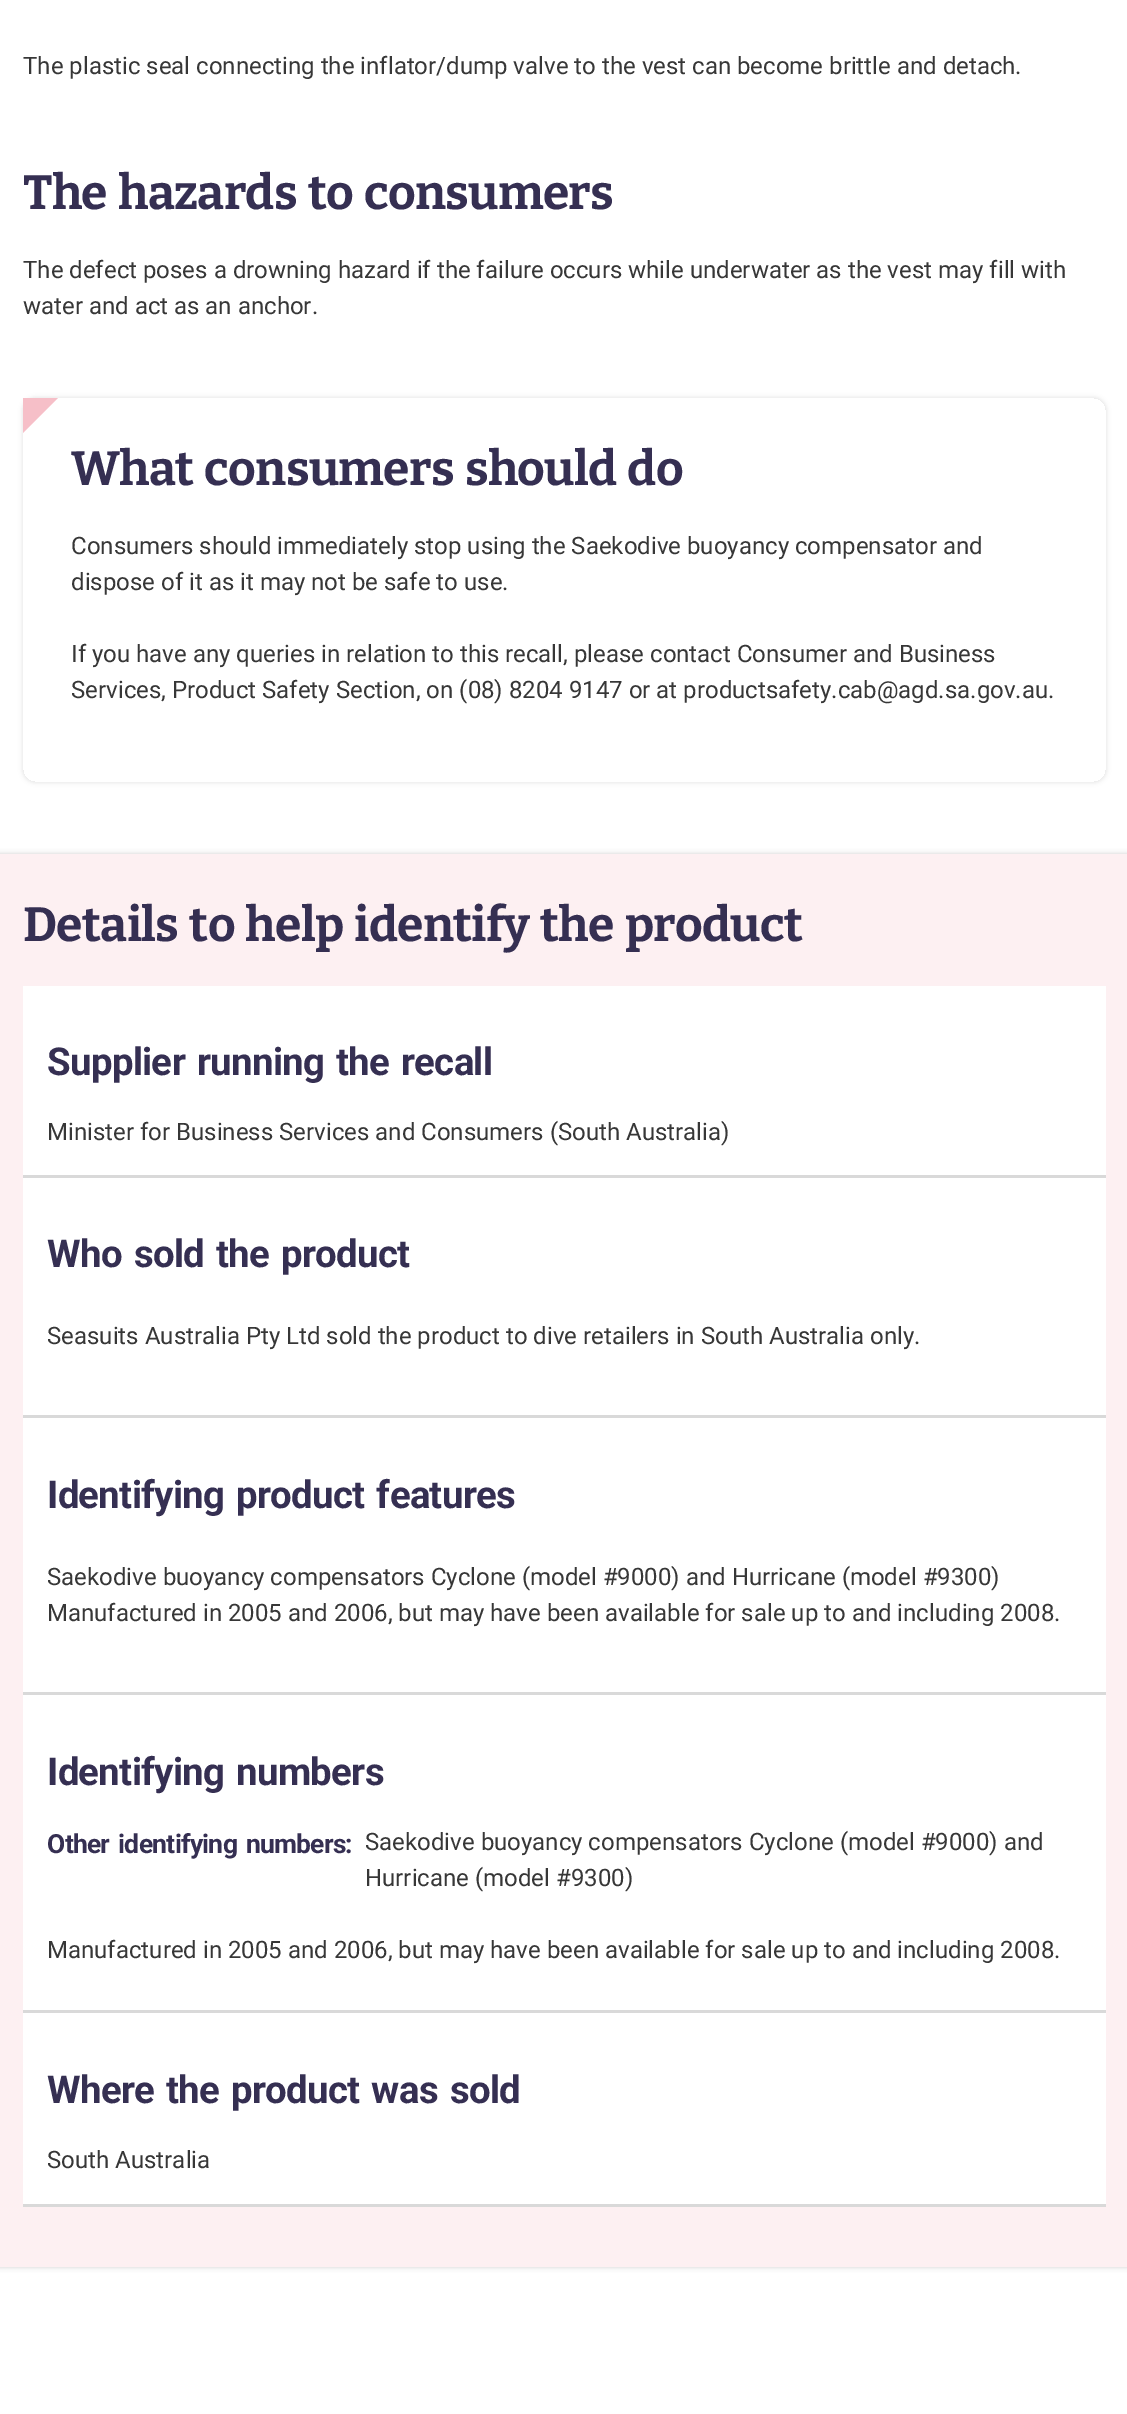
%!PS
<< /PageSize [1127 2414] /PageUsesTransparency true >> setpagedevice
/rgb { 3 { 255 div 3 1 roll } repeat setrgbcolor } def
/font { [ exch dup neg 0 0 3 -1 roll 0 0 ] selectfont } def
/text { moveto show } def
/alpha { dup .setfillconstantalpha .setstrokeconstantalpha } def
/roundrect { 5 dict begin { /r /h /w /y /x } { exch def } forall
  x r add y moveto x w add y 2 copy h add r arct x w add y h add x 1 index r arct
  x y h add x y r arct x y 2 copy exch w add exch r arct closepath end } def
/shadow { 12 dict begin { /a /b /q /h /w /y /x } { exch def } forall gsave /was 0 def
  9 -2 -9 { dup b mul 4 div /e exch def 1 sub .425 mul 2.718 exch exp 1 add a .99 .min exch div /now exch def
    1 1 now sub 1 was sub div sub alpha /was now def
    w h .min e 2 mul add 0 gt { x e sub y e sub w e 2 mul add h e 2 mul add
      q e add b .6 mul add w h .min 2 div e add .min 0 .max roundrect fill } if } for grestore end } def
0 .pushpdf14devicefilter
0 2414 translate 1 -1 scale
4 setmiterlimit
255 255 255 rgb
0 0 1127 2414 rectfill
gsave
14 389 moveto 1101 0 rlineto 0 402 rlineto -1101 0 rlineto closepath 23 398 moveto 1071 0 rlineto 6.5 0 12 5.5 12 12 rcurveto 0 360 rlineto 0 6.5 -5.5 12 -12 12 rcurveto -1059 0 rlineto -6.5 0 -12 -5.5 -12 -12 rcurveto closepath eoclip newpath
0 0 0 rgb
23 398 1083 384 12 2.5 0.12 shadow
grestore
246 191 200 rgb
23 398 moveto 0 35 rlineto 35 -35 rlineto closepath fill
0 0 0 rgb
-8 854 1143 1413 0 2.5 0.12 shadow
-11 854 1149 1413 0 3.5 0.06 shadow
253 240 242 rgb
0 854 1127 1413 rectfill
255 255 255 rgb
23 986 1083 1218 rectfill
217 217 217 rgb
23 1175 1083 3 rectfill
23 1415 1083 3 rectfill
23 1692 1083 3 rectfill
23 2010 1083 3 rectfill
23 2204 1083 3 rectfill
/Roboto-Regular 24 font
55 55 55 rgb
(The plastic seal connecting the inflator/dump valve to the vest can become brittle and detach.) 23 74 text
/Bitter-Bold 48 font
53 47 82 rgb
23 209 moveto 3 0 32 -0.7 0 (The hazards to consumers) awidthshow
/Roboto-Regular 24 font
55 55 55 rgb
(The defect poses a drowning hazard if the failure occurs while underwater as the vest may fill with) 23 278 text
(water and act as an anchor.) 23 314 text
/Bitter-Bold 48 font
53 47 82 rgb
71 485 moveto 3 0 32 -0.7 0 (What consumers should do) awidthshow
/Roboto-Regular 24 font
55 55 55 rgb
(Consumers should immediately stop using the Saekodive buoyancy compensator and) 71 554 text
(dispose of it as it may not be safe to use.) 71 590 text
(If you have any queries in relation to this recall, please contact Consumer and Business) 71 662 text
(Services, Product Safety Section, on \(08\) 8204 9147 or at productsafety.cab@agd.sa.gov.au.) 71 698 text
/Bitter-Bold 48 font
53 47 82 rgb
23 941 moveto 3 0 32 -0.7 0 (Details to help identify the product) awidthshow
/Roboto-Bold 38.4 font
47 1075 moveto 3 0 32 -0.7 0 (Supplier running the recall) awidthshow
/Roboto-Regular 24 font
55 55 55 rgb
(Minister for Business Services and Consumers \(South Australia\)) 47 1140 text
/Roboto-Bold 38.4 font
53 47 82 rgb
47 1267 moveto 3 0 32 -0.7 0 (Who sold the product) awidthshow
/Roboto-Regular 24 font
55 55 55 rgb
(Seasuits Australia Pty Ltd sold the product to dive retailers in South Australia only.) 47 1344 text
/Roboto-Bold 38.4 font
53 47 82 rgb
47 1508 moveto 3 0 32 -0.7 0 (Identifying product features) awidthshow
/Roboto-Regular 24 font
55 55 55 rgb
(Saekodive buoyancy compensators Cyclone \(model #9000\) and Hurricane \(model #9300\)) 47 1585 text
(Manufactured in 2005 and 2006, but may have been available for sale up to and including 2008.) 47 1621 text
/Roboto-Bold 38.4 font
53 47 82 rgb
47 1785 moveto 3 0 32 -0.7 0 (Identifying numbers) awidthshow
/Roboto-Regular 24 font
55 55 55 rgb
(Saekodive buoyancy compensators Cyclone \(model #9000\) and) 365 1850 text
(Hurricane \(model #9300\)) 365 1886 text
(Manufactured in 2005 and 2006, but may have been available for sale up to and including 2008.) 47 1958 text
/Roboto-Bold 26.4 font
53 47 82 rgb
47 1853 moveto 3 0 32 -0.7 0 (Other identifying numbers) awidthshow
345 1853 moveto -0.7 0 (:) ashow
/Roboto-Bold 38.4 font
47 2103 moveto 3 0 32 -0.7 0 (Where the product was sold) awidthshow
/Roboto-Regular 24 font
55 55 55 rgb
(South Australia) 47 2168 text
.poppdf14devicefilter showpage
